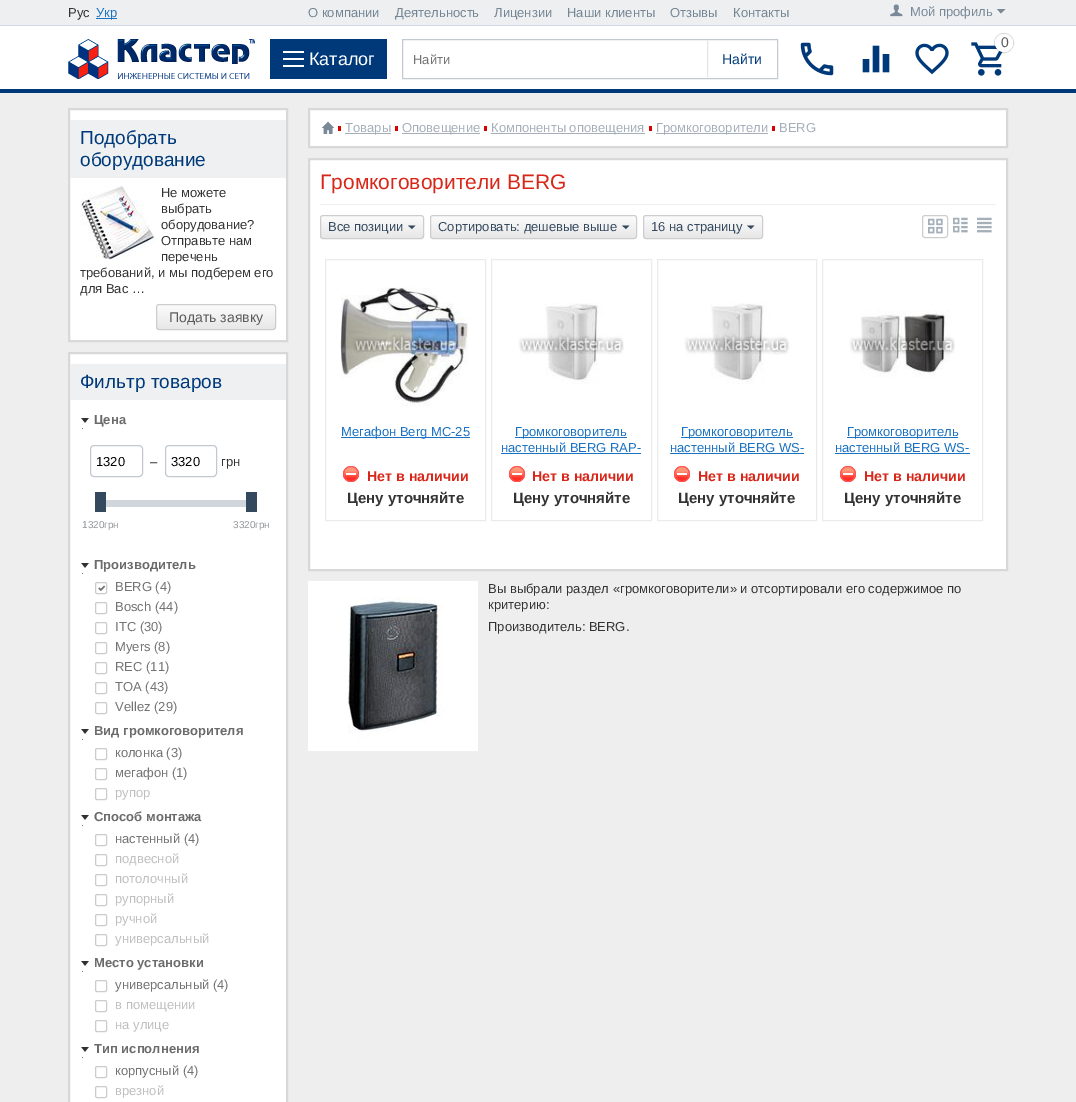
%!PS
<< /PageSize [1076 1102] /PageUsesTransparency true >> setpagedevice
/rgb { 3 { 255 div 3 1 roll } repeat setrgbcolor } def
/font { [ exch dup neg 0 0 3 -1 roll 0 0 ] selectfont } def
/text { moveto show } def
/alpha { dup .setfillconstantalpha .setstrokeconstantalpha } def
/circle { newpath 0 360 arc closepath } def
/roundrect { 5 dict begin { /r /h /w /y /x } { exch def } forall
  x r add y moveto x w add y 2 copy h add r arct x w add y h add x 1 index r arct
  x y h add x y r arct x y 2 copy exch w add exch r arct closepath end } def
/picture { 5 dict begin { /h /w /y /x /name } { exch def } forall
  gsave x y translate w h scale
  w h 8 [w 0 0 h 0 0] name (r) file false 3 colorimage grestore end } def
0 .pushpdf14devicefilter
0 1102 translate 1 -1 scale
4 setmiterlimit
238 238 238 rgb
0 0 1076 1102 rectfill
237 239 241 rgb
0 0 1076 25 rectfill
27 114 194 rgb
96 18 21 1 rectfill
(img_01.rgb) 890 4 13 13 picture
122 137 152 rgb
1001 13.5 moveto -4 -4.5 rlineto 8.5 0 rlineto closepath fill
255 255 255 rgb
0 26 1076 63 rectfill
209 216 230 rgb
0 25 1076 1 rectfill
(img_02.rgb) 68 39 187 40 picture
0 57 121 rgb
270 39 117 40 rectfill
255 255 255 rgb
283 58 21 2 rectfill
283 51 21 2 rectfill
283 65 21 2 rectfill
194 201 208 rgb
402.5 39.5 375 39 rectstroke
229 229 229 rgb
708 77 moveto -0.5 -1 rlineto 0 -34 rlineto 0.5 -1 rlineto stroke
(img_03.rgb) 800 42 34 34 picture
(img_04.rgb) 862 45 28 28 picture
(img_05.rgb) 915 43 34 32 picture
(img_06.rgb) 971 42 32 34 picture
0.15 alpha
0 0 0 rgb
1004 43 9.5 circle stroke
1 alpha
255 255 255 rgb
1004 43 9 circle fill
0 57 121 rgb
0 89 1076 4 rectfill
255 255 255 rgb
69 109 moveto 218 0 rlineto 0 232 rlineto -218 0 rlineto closepath gsave fill grestore
216 216 216 rgb
2 setlinewidth
stroke
238 240 241 rgb
70 120 216 58 rectfill
(img_07.rgb) 80 185 75 75 picture
gsave
156 304 120 26 3 roundrect clip newpath
gsave 156 305 moveto 120 0 rlineto 0 24 rlineto -120 0 rlineto closepath clip newpath
<< /ShadingType 2 /ColorSpace /DeviceRGB /Coords [216 305 216 329] /Extend [true true] /Function << /FunctionType 2 /Domain [0 1] /C0 [0.988 0.988 0.988] /C1 [0.906 0.906 0.906] /N 1 >> >> shfill grestore
grestore
205 205 205 rgb
1 setlinewidth
156.5 304.5 119 25 2.5 roundrect stroke
255 255 255 rgb
69 353 moveto 218 0 rlineto 0 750 rlineto -218 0 rlineto closepath gsave fill grestore
216 216 216 rgb
2 setlinewidth
stroke
238 240 241 rgb
70 364 216 36 rectfill
(img_08.rgb) 81 418 8 11 picture
194 201 208 rgb
1 setlinewidth
90.5 445.5 52 31 3.5 roundrect stroke
165.5 445.5 51 31 3.5 roundrect stroke
208 214 219 rgb
103 500 151 7 rectfill
52 73 94 rgb
95 492 11 20 rectfill
246 492 11 20 rectfill
(img_08.rgb) 81 563 8 11 picture
204 204 204 rgb
95.5 582.5 11 11 1.5 roundrect stroke
(img_09.rgb) 98 585 8 7 picture
95.5 602.5 11 11 1.5 roundrect stroke
95.5 622.5 11 11 1.5 roundrect stroke
95.5 642.5 11 11 1.5 roundrect stroke
95.5 662.5 11 11 1.5 roundrect stroke
95.5 682.5 11 11 1.5 roundrect stroke
95.5 702.5 11 11 1.5 roundrect stroke
(img_08.rgb) 81 729 8 11 picture
95.5 748.5 11 11 1.5 roundrect stroke
95.5 768.5 11 11 1.5 roundrect stroke
95.5 788.5 11 11 1.5 roundrect stroke
(img_08.rgb) 81 815 8 11 picture
95.5 834.5 11 11 1.5 roundrect stroke
95.5 854.5 11 11 1.5 roundrect stroke
95.5 874.5 11 11 1.5 roundrect stroke
95.5 894.5 11 11 1.5 roundrect stroke
95.5 914.5 11 11 1.5 roundrect stroke
95.5 934.5 11 11 1.5 roundrect stroke
(img_08.rgb) 81 961 8 11 picture
95.5 980.5 11 11 1.5 roundrect stroke
95.5 1000.5 11 11 1.5 roundrect stroke
95.5 1020.5 11 11 1.5 roundrect stroke
(img_08.rgb) 81 1047 8 11 picture
95.5 1066.5 11 11 1.5 roundrect stroke
95.5 1086.5 11 11 1.5 roundrect stroke
255 255 255 rgb
309 109 moveto 698 0 rlineto 0 38 rlineto -698 0 rlineto closepath gsave fill grestore
216 216 216 rgb
2 setlinewidth
stroke
(img_10.rgb) 322 122 12 12 picture
215 1 0 rgb
338 126 3 5 rectfill
165 175 185 rgb
345 133 46 1 rectfill
215 1 0 rgb
395 126 3 5 rectfill
165 175 185 rgb
402 133 78 1 rectfill
215 1 0 rgb
484 126 3 5 rectfill
165 175 185 rgb
491 133 154 1 rectfill
215 1 0 rgb
649 126 3 5 rectfill
165 175 185 rgb
656 133 112 1 rectfill
215 1 0 rgb
772 126 3 5 rectfill
255 255 255 rgb
309 159 moveto 698 0 rlineto 0 411 rlineto -698 0 rlineto closepath gsave fill grestore
216 216 216 rgb
stroke
237 239 241 rgb
320 204 676 1 rectfill
gsave
320 215 104 24 3 roundrect clip newpath
gsave 320 216 moveto 104 0 rlineto 0 22 rlineto -104 0 rlineto closepath clip newpath
<< /ShadingType 2 /ColorSpace /DeviceRGB /Coords [372 216 372 238] /Extend [true true] /Function << /FunctionType 2 /Domain [0 1] /C0 [0.988 0.988 0.988] /C1 [0.906 0.906 0.906] /N 1 >> >> shfill grestore
grestore
205 205 205 rgb
1 setlinewidth
320.5 215.5 103 23 2.5 roundrect stroke
52 73 94 rgb
412 229 moveto -4 -3.5 rlineto 7.5 0 rlineto closepath fill
gsave
430 215 207 24 3 roundrect clip newpath
gsave 430 216 moveto 207 0 rlineto 0 22 rlineto -207 0 rlineto closepath clip newpath
<< /ShadingType 2 /ColorSpace /DeviceRGB /Coords [534 216 534 238] /Extend [true true] /Function << /FunctionType 2 /Domain [0 1] /C0 [0.988 0.988 0.988] /C1 [0.906 0.906 0.906] /N 1 >> >> shfill grestore
grestore
205 205 205 rgb
430.5 215.5 206 23 2.5 roundrect stroke
52 73 94 rgb
626 229 moveto -4 -3.5 rlineto 7.5 0 rlineto closepath fill
gsave
643 215 120 24 3 roundrect clip newpath
gsave 643 216 moveto 120 0 rlineto 0 22 rlineto -120 0 rlineto closepath clip newpath
<< /ShadingType 2 /ColorSpace /DeviceRGB /Coords [703 216 703 238] /Extend [true true] /Function << /FunctionType 2 /Domain [0 1] /C0 [0.988 0.988 0.988] /C1 [0.906 0.906 0.906] /N 1 >> >> shfill grestore
grestore
205 205 205 rgb
643.5 215.5 119 23 2.5 roundrect stroke
52 73 94 rgb
751 229 moveto -4 -3.5 rlineto 7.5 0 rlineto closepath fill
205 205 205 rgb
922.5 215.5 25 22 2.5 roundrect stroke
(img_11.rgb) 928 218 15 16 picture
(img_12.rgb) 953 217 15 16 picture
(img_13.rgb) 977 217 15 16 picture
235 235 235 rgb
325.5 259.5 160 261 rectstroke
(img_14.rgb) 340 287 128 120 picture
27 114 194 rgb
341 437 129 1 rectfill
(img_15.rgb) 343 466 16 16 picture
235 235 235 rgb
491.5 259.5 160 261 rectstroke
(img_16.rgb) 518 303 106 81 picture
27 114 194 rgb
515 437 112 1 rectfill
501 453 140 1 rectfill
(img_15.rgb) 509 466 16 16 picture
235 235 235 rgb
657.5 259.5 159 261 rectstroke
(img_17.rgb) 684 303 106 81 picture
27 114 194 rgb
681 437 112 1 rectfill
670 453 134 1 rectfill
(img_15.rgb) 674 466 16 16 picture
235 235 235 rgb
822.5 259.5 160 261 rectstroke
(img_18.rgb) 849 310 106 67 picture
27 114 194 rgb
847 437 111 1 rectfill
835 453 135 1 rectfill
(img_15.rgb) 840 466 16 16 picture
(img_19.rgb) 308 581 170 170 picture
/LiberationSans-Regular 13 font
51 51 51 rgb
(Рус) 68 17 text
27 114 194 rgb
(Укр) 96 17 text
116 133 147 rgb
(О компании) 308 17 text
(Деятельность) 395 17 text
(Лицензии) 494 17 text
(Наши клиенты) 567 17 text
(Отзывы) 670 17 text
(Контакты) 733 17 text
122 137 152 rgb
(Мой профиль) 910 16 text
/LiberationSans-Regular 18 font
255 255 255 rgb
(Каталог) 309 65 text
/LiberationSans-Regular 13 font
115 115 115 rgb
(Найти) 413 64 text
/LiberationSans-Regular 14 font
0 57 121 rgb
(Найти) 722 64 text
89 89 89 rgb
1001 47 moveto -1 0 (0) ashow
/LiberationSans-Regular 19 font
0 57 121 rgb
(Подобрать) 80 144 text
(оборудование) 80 166 text
/LiberationSans-Regular 13 font
51 51 51 rgb
(Не можете) 161 197 text
(выбрать) 161 213 text
(оборудование?) 161 229 text
(Отправьте нам) 161 245 text
(перечень) 161 261 text
(требований, и мы подберем его) 80 277 text
(для Вас …) 80 293 text
/LiberationSans-Regular 14 font
89 89 89 rgb
(Подать заявку) 169 322 text
/LiberationSans-Regular 19 font
0 57 121 rgb
(Фильтр товаров) 80 388 text
/LiberationSans-Bold 13 font
107 107 107 rgb
(Цена) 94 424 text
/LiberationSans-Regular 13 font
0 0 0 rgb
(1320) 96 466 text
51 51 51 rgb
(–) 150 466 text
0 0 0 rgb
(3320) 171 466 text
51 51 51 rgb
(грн) 221 466 text
/LiberationSans-Regular 10 font
144 149 152 rgb
(1320грн) 82 528 text
(3320грн) 233 528 text
/LiberationSans-Bold 13 font
107 107 107 rgb
(Производитель) 94 569 text
/LiberationSans-Regular 13 font
115 115 115 rgb
(BERG \(4\)) 115 591 text
(Bosch \(44\)) 115 611 text
(ITC \(30\)) 115 631 text
(Myers \(8\)) 115 651 text
(REC \(11\)) 115 671 text
(TOA \(43\)) 115 691 text
(Vellez \(29\)) 115 711 text
/LiberationSans-Bold 13 font
107 107 107 rgb
(Вид громкоговорителя) 94 735 text
/LiberationSans-Regular 13 font
115 115 115 rgb
(колонка \(3\)) 115 757 text
(мегафон \(1\)) 115 777 text
191 191 191 rgb
(рупор) 115 797 text
/LiberationSans-Bold 13 font
107 107 107 rgb
(Способ монтажа) 94 821 text
/LiberationSans-Regular 13 font
115 115 115 rgb
(настенный \(4\)) 115 843 text
191 191 191 rgb
(подвесной) 115 863 text
(потолочный) 115 883 text
(рупорный) 115 903 text
(ручной) 115 923 text
(универсальный) 115 943 text
/LiberationSans-Bold 13 font
107 107 107 rgb
(Место установки) 94 967 text
/LiberationSans-Regular 13 font
115 115 115 rgb
(универсальный \(4\)) 115 989 text
191 191 191 rgb
(в помещении) 115 1009 text
(на улице) 115 1029 text
/LiberationSans-Bold 13 font
107 107 107 rgb
(Тип исполнения) 94 1053 text
/LiberationSans-Regular 13 font
115 115 115 rgb
(корпусный \(4\)) 115 1075 text
191 191 191 rgb
(врезной) 115 1095 text
165 175 185 rgb
(Товары) 345 132 text
(Оповещение) 402 132 text
(Компоненты оповещения) 491 132 text
(Громкоговорители) 656 132 text
(BERG) 779 132 text
/LiberationSans-Regular 21 font
216 38 25 rgb
(Громкоговорители BERG) 320 189 text
/LiberationSans-Regular 13 font
52 73 94 rgb
(Все позиции) 328 231 text
(Сортировать: дешевые выше) 438 231 text
(16 на страницу) 651 231 text
27 114 194 rgb
(Мегафон Berg MC-25) 341 436 text
/LiberationSans-Bold 14.25 font
216 38 25 rgb
(Нет в наличии) 367 481 text
/LiberationSans-Bold 15 font
51 51 51 rgb
(Цену уточняйте) 347 503 text
/LiberationSans-Regular 13 font
27 114 194 rgb
(Громкоговоритель) 515 436 text
(настенный BERG RAP-) 501 452 text
/LiberationSans-Bold 14.25 font
216 38 25 rgb
(Нет в наличии) 532 481 text
/LiberationSans-Bold 15 font
51 51 51 rgb
(Цену уточняйте) 513 503 text
/LiberationSans-Regular 13 font
27 114 194 rgb
(Громкоговоритель) 681 436 text
(настенный BERG WS-) 670 452 text
/LiberationSans-Bold 14.25 font
216 38 25 rgb
(Нет в наличии) 698 481 text
/LiberationSans-Bold 15 font
51 51 51 rgb
(Цену уточняйте) 678 503 text
/LiberationSans-Regular 13 font
27 114 194 rgb
(Громкоговоритель) 847 436 text
(настенный BERG WS-) 835 452 text
/LiberationSans-Bold 14.25 font
216 38 25 rgb
(Нет в наличии) 864 481 text
/LiberationSans-Bold 15 font
51 51 51 rgb
(Цену уточняйте) 844 503 text
/LiberationSans-Regular 13 font
(Вы выбрали раздел «громкоговорители» и отсортировали его содержимое по) 488 593 text
(критерию:) 488 609 text
(Производитель: BERG.) 488 631 text
.poppdf14devicefilter showpage
